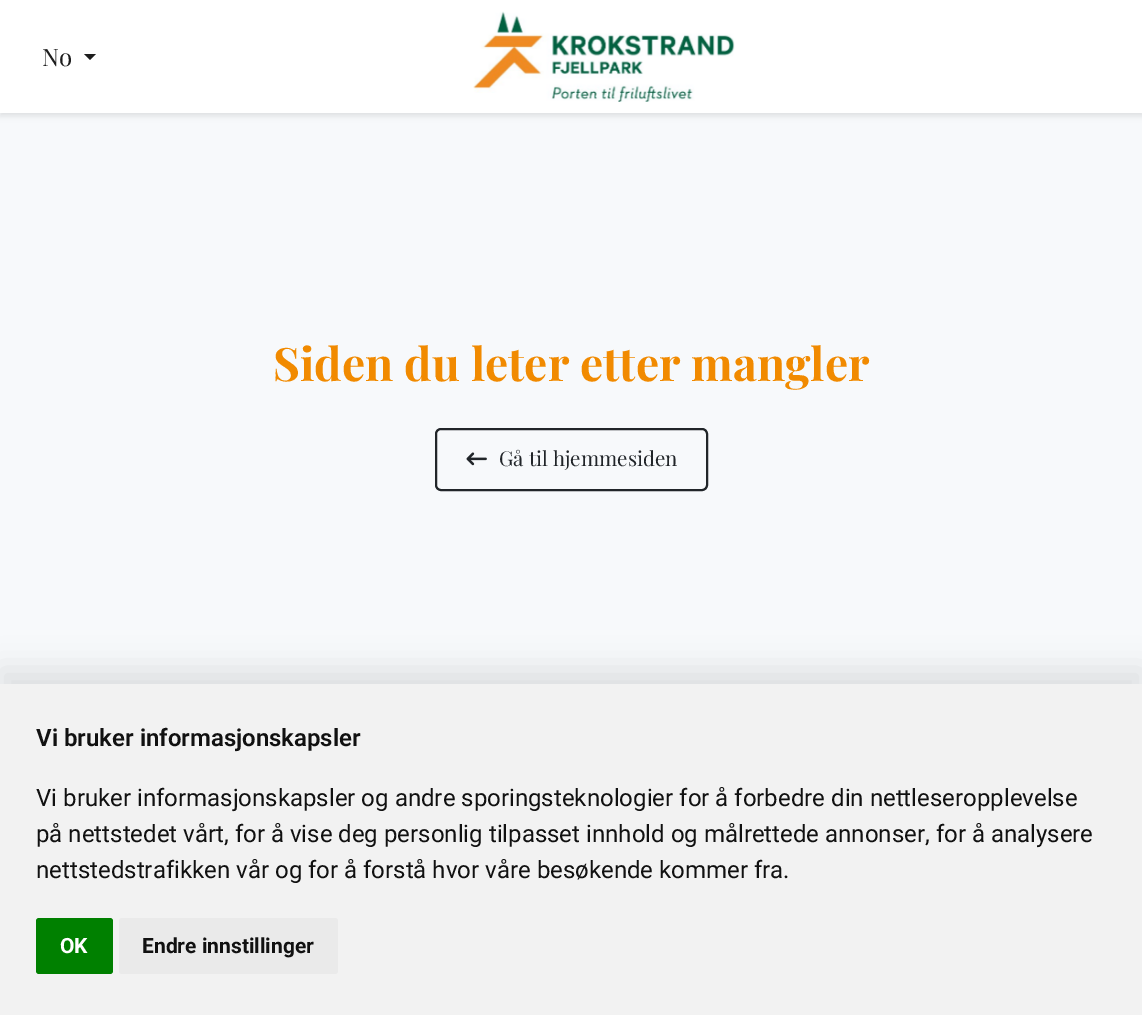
%!PS
<< /PageSize [1142 1015] /PageUsesTransparency true >> setpagedevice
/rgb { 3 { 255 div 3 1 roll } repeat setrgbcolor } def
/font { [ exch dup neg 0 0 3 -1 roll 0 0 ] selectfont } def
/text { moveto show } def
/alpha { dup .setfillconstantalpha .setstrokeconstantalpha } def
/roundrect { 5 dict begin { /r /h /w /y /x } { exch def } forall
  x r add y moveto x w add y 2 copy h add r arct x w add y h add x 1 index r arct
  x y h add x y r arct x y 2 copy exch w add exch r arct closepath end } def
/shadow { 12 dict begin { /a /b /q /h /w /y /x } { exch def } forall gsave /was 0 def
  9 -2 -9 { dup b mul 4 div /e exch def 1 sub .425 mul 2.718 exch exp 1 add a .99 .min exch div /now exch def
    1 1 now sub 1 was sub div sub alpha /was now def
    w h .min e 2 mul add 0 gt { x e sub y e sub w e 2 mul add h e 2 mul add
      q e add b .6 mul add w h .min 2 div e add .min 0 .max roundrect fill } if } for grestore end } def
/picture { 5 dict begin { /h /w /y /x /name } { exch def } forall
  gsave x y translate w h scale
  w h 8 [w 0 0 h 0 0] name (r) file false 3 colorimage grestore end } def
0 .pushpdf14devicefilter
0 1015 translate 1 -1 scale
4 setmiterlimit
247 249 251 rgb
0 0 1142 1015 rectfill
0 0 0 rgb
0 3 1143 113 0 3 0.1 shadow
255 255 255 rgb
0 0 1142 113 rectfill
29 29 29 rgb
84 54 moveto 12 0 rlineto -6 6 rlineto closepath fill
(img_01.rgb) 473 11 262 91 picture
33 37 41 rgb
2 setlinewidth
436 429 271 61 5 roundrect stroke
(img_02.rgb) 466 452 21 14 picture
0 0 0 rgb
0 669 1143 332 0 15 0.1 shadow
242 242 242 rgb
0 684 1142 331 rectfill
0 128 0 rgb
36 918 77 56 3 roundrect fill
234 234 234 rgb
119 918 219 56 3 roundrect fill
/PlayfairDisplay-Regular 24 font
29 29 29 rgb
(No) 42 66 text
/PlayfairDisplay-Bold 46.1 font
241 138 0 rgb
(Siden du leter etter mangler) 273 381 text
/PlayfairDisplay-Regular 20.5 font
33 37 41 rgb
(Gå til hjemmesiden) 499 466 text
/Roboto-SemiBold 24 font
17 17 17 rgb
(Vi bruker informasjonskapsler) 36 746 text
/Roboto-Regular 24 font
(Vi bruker informasjonskapsler og andre sporingsteknologier for å forbedre din nettleseropplevelse) 36 806 text
(på nettstedet vårt, for å vise deg personlig tilpasset innhold og målrettede annonser, for å analysere) 36 842 text
(nettstedstrafikken vår og for å forstå hvor våre besøkende kommer fra.) 36 878 text
/Roboto-Bold 21 font
255 255 255 rgb
(OK) 60 953 text
17 17 17 rgb
(Endre innstillinger) 142 953 text
.poppdf14devicefilter showpage
